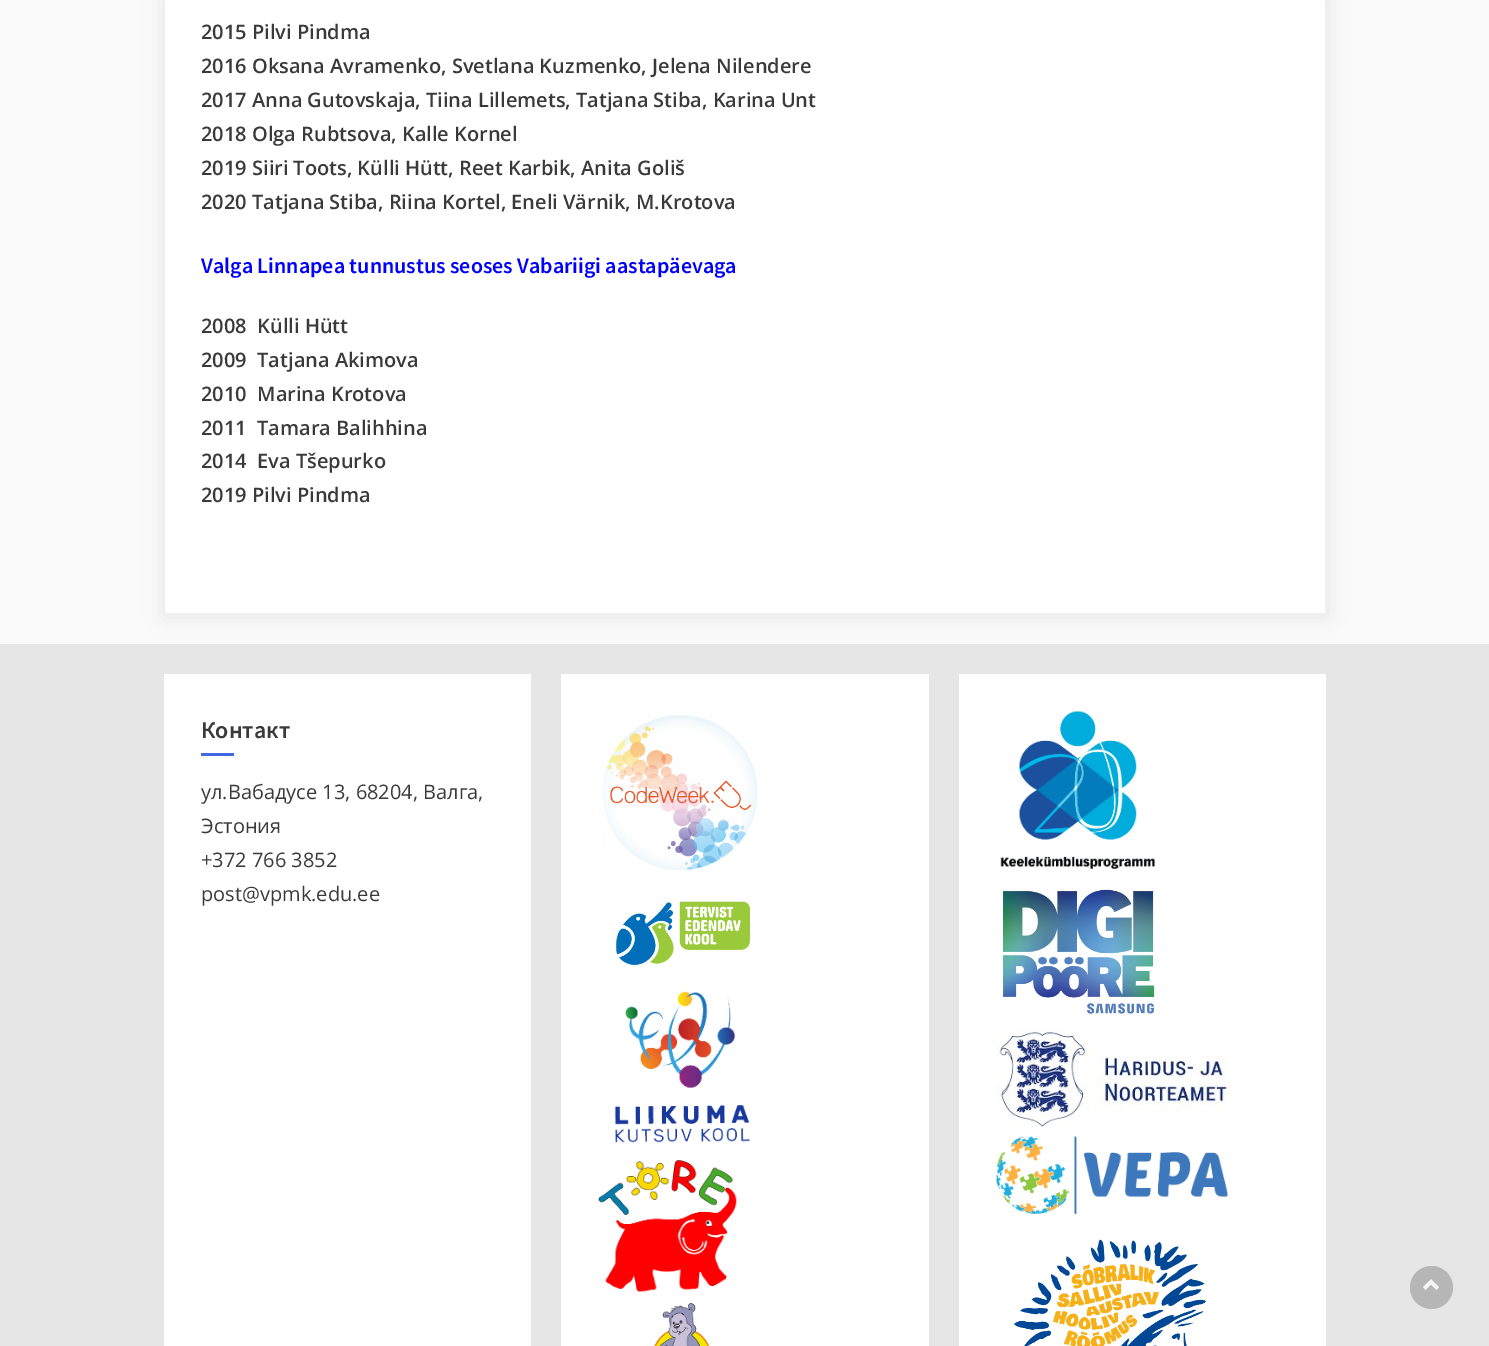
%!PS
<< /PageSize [1489 1346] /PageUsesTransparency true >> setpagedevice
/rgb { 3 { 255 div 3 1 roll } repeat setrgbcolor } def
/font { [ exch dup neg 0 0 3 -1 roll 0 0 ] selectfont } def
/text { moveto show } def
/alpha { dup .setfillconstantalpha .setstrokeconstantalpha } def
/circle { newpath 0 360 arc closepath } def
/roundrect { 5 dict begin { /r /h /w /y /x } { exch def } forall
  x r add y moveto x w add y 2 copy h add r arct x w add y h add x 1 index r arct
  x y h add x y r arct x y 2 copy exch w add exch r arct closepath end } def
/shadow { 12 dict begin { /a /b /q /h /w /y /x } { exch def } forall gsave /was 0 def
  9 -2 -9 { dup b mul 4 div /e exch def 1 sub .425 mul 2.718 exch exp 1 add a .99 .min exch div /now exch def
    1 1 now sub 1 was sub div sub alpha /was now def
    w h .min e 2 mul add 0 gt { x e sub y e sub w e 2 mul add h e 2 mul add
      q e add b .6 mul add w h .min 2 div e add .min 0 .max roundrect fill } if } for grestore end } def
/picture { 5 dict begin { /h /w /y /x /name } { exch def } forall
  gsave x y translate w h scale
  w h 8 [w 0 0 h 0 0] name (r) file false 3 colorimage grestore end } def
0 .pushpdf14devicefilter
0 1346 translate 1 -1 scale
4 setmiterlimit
250 250 250 rgb
0 0 1489 1346 rectfill
230 230 230 rgb
0 644 1489 702 rectfill
0 0 0 rgb
165 -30 1163 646 0 10 0.08 shadow
255 255 255 rgb
164.5 -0.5 moveto 1161 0 rlineto 0 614 rlineto -1161 0 rlineto closepath gsave fill grestore
239 239 239 rgb
stroke
255 255 255 rgb
164 674 367 672 rectfill
65 105 225 rgb
201 753 33 3 rectfill
255 255 255 rgb
561 674 368 672 rectfill
(img_01.rgb) 602 715 156 155 picture
(img_02.rgb) 616 901 134 65 picture
(img_03.rgb) 614 991 136 152 picture
(img_04.rgb) 598 1160 139 132 picture
(img_05.rgb) 654 1303 56 43 picture
959 674 367 672 rectfill
(img_06.rgb) 1000 711 156 158 picture
(img_07.rgb) 1003 889 152 125 picture
(img_08.rgb) 996 1029 231 98 picture
(img_09.rgb) 996 1136 232 78 picture
(img_10.rgb) 1014 1239 192 107 picture
0.35 alpha
92 92 92 rgb
1431.5 1287.5 21.5 circle fill
1 alpha
245 245 245 rgb
1425.5 1290 moveto -2.5 -3 rlineto 8 -7.5 rlineto 2.5 2.5 rlineto closepath fill
1436.5 1290 moveto -8 -8 rlineto 2.5 -2.5 rlineto 8 7.5 rlineto closepath fill
/OpenSans-SemiBold 20 font
58 58 58 rgb
(2015 Pilvi Pindma) 201 39 text
(2016 Oksana Avramenko, Svetlana Kuzmenko, Jelena Nilendere) 201 73 text
(2017 Anna Gutovskaja, Tiina Lillemets, Tatjana Stiba, Karina Unt) 201 107 text
(2018 Olga Rubtsova, Kalle Kornel) 201 141 text
(2019 Siiri Toots, Külli Hütt, Reet Karbik, Anita Goliš) 201 175 text
(2020 Tatjana Stiba, Riina Kortel, Eneli Värnik, M.Krotova) 201 209 text
/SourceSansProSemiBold-SemiBold 22 font
0 0 255 rgb
(Valga Linnapea tunnustus seoses Vabariigi aastapäevaga) 201 273 text
/OpenSans-SemiBold 20 font
58 58 58 rgb
(2008  Külli Hütt) 201 333 text
(2009  Tatjana Akimova) 201 367 text
(2010  Marina Krotova) 201 401 text
(2011  Tamara Balihhina) 201 435 text
(2014  Eva Tšepurko) 201 468 text
(2019 Pilvi Pindma) 201 502 text
/SourceSansProSemiBold-SemiBold 24 font
(Контакт) 201 738 text
/OpenSans-Regular 20 font
(ул.Вабадусе 13, 68204, Валга,) 201 799 text
(Эстония) 201 833 text
(+372 766 3852) 201 867 text
(post@vpmk.edu.ee) 201 901 text
.poppdf14devicefilter showpage
